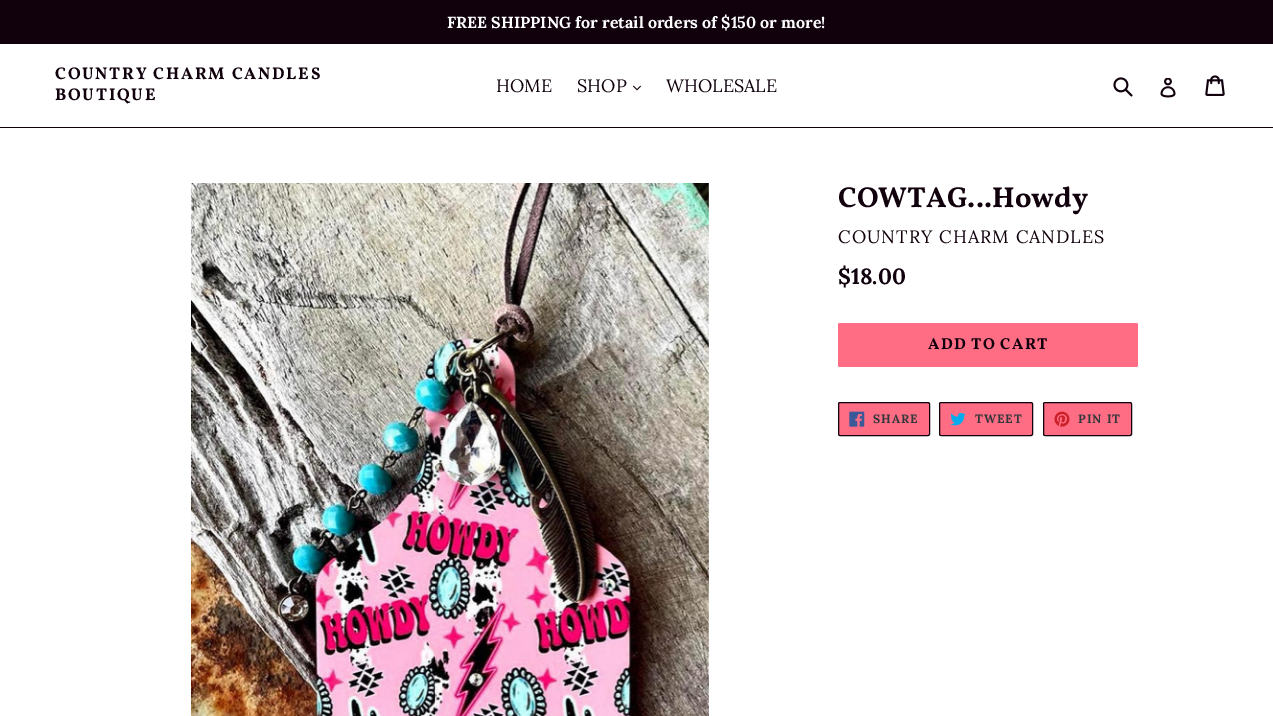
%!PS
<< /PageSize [1273 716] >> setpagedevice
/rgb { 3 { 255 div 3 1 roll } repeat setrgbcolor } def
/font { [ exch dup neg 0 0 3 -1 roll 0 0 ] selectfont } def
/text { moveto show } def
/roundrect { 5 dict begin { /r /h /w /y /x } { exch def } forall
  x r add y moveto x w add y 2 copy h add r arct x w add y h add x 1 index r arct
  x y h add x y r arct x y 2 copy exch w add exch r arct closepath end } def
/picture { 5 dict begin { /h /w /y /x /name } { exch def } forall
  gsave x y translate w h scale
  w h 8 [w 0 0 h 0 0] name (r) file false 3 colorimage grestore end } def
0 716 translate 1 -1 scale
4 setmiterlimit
255 255 255 rgb
0 0 1273 716 rectfill
16 1 13 rgb
0 0 1273 44 rectfill
0 127 1273 1 rectfill
(img_01.rgb) 633 85 8 6 picture
(img_02.rgb) 1113 77 20 20 picture
(img_03.rgb) 1160 78 16 20 picture
(img_04.rgb) 1205 75 20 21 picture
(img_05.rgb) 191 183 518 533 picture
255 109 132 rgb
838 323 300 44 2 roundrect fill
838.5 402.5 91 33 1.5 roundrect gsave fill grestore
16 1 13 rgb
stroke
(img_06.rgb) 849 411 16 16 picture
255 109 132 rgb
939.5 402.5 93 33 1.5 roundrect gsave fill grestore
16 1 13 rgb
stroke
(img_07.rgb) 950 412 16 14 picture
255 109 132 rgb
1043.5 402.5 88 33 1.5 roundrect gsave fill grestore
16 1 13 rgb
stroke
(img_08.rgb) 1054 411 16 16 picture
/Lora-Bold 16 font
255 255 255 rgb
(FREE SHIPPING for retail orders of $150 or more!) 447 28 text
/Vollkorn-Bold 17 font
16 1 13 rgb
55 79 moveto 1.7 0 (COUNTRY CHARM CANDLES) ashow
55 100 moveto 1.7 0 (BOUTIQUE) ashow
/Lora-Regular 18 font
(HOME) 496 92 text
(SHOP) 577 92 text
(WHOLESALE) 666 92 text
/Vollkorn-Bold 29 font
(COWTAG...Howdy) 838 207 text
/Lora-Regular 18 font
838 243 moveto 1 0 (COUNTRY CHARM CANDLES) ashow
/Lora-Bold 22 font
($18.00) 838 284 text
/Vollkorn-Bold 16 font
928 349 moveto 1.25 0 (ADD TO CART) ashow
/Lora-Bold 12 font
50 55 59 rgb
873 423 moveto 1 0 (SHARE) ashow
975 423 moveto 1 0 (TWEET) ashow
1078 423 moveto 1 0 (PIN IT) ashow
showpage
